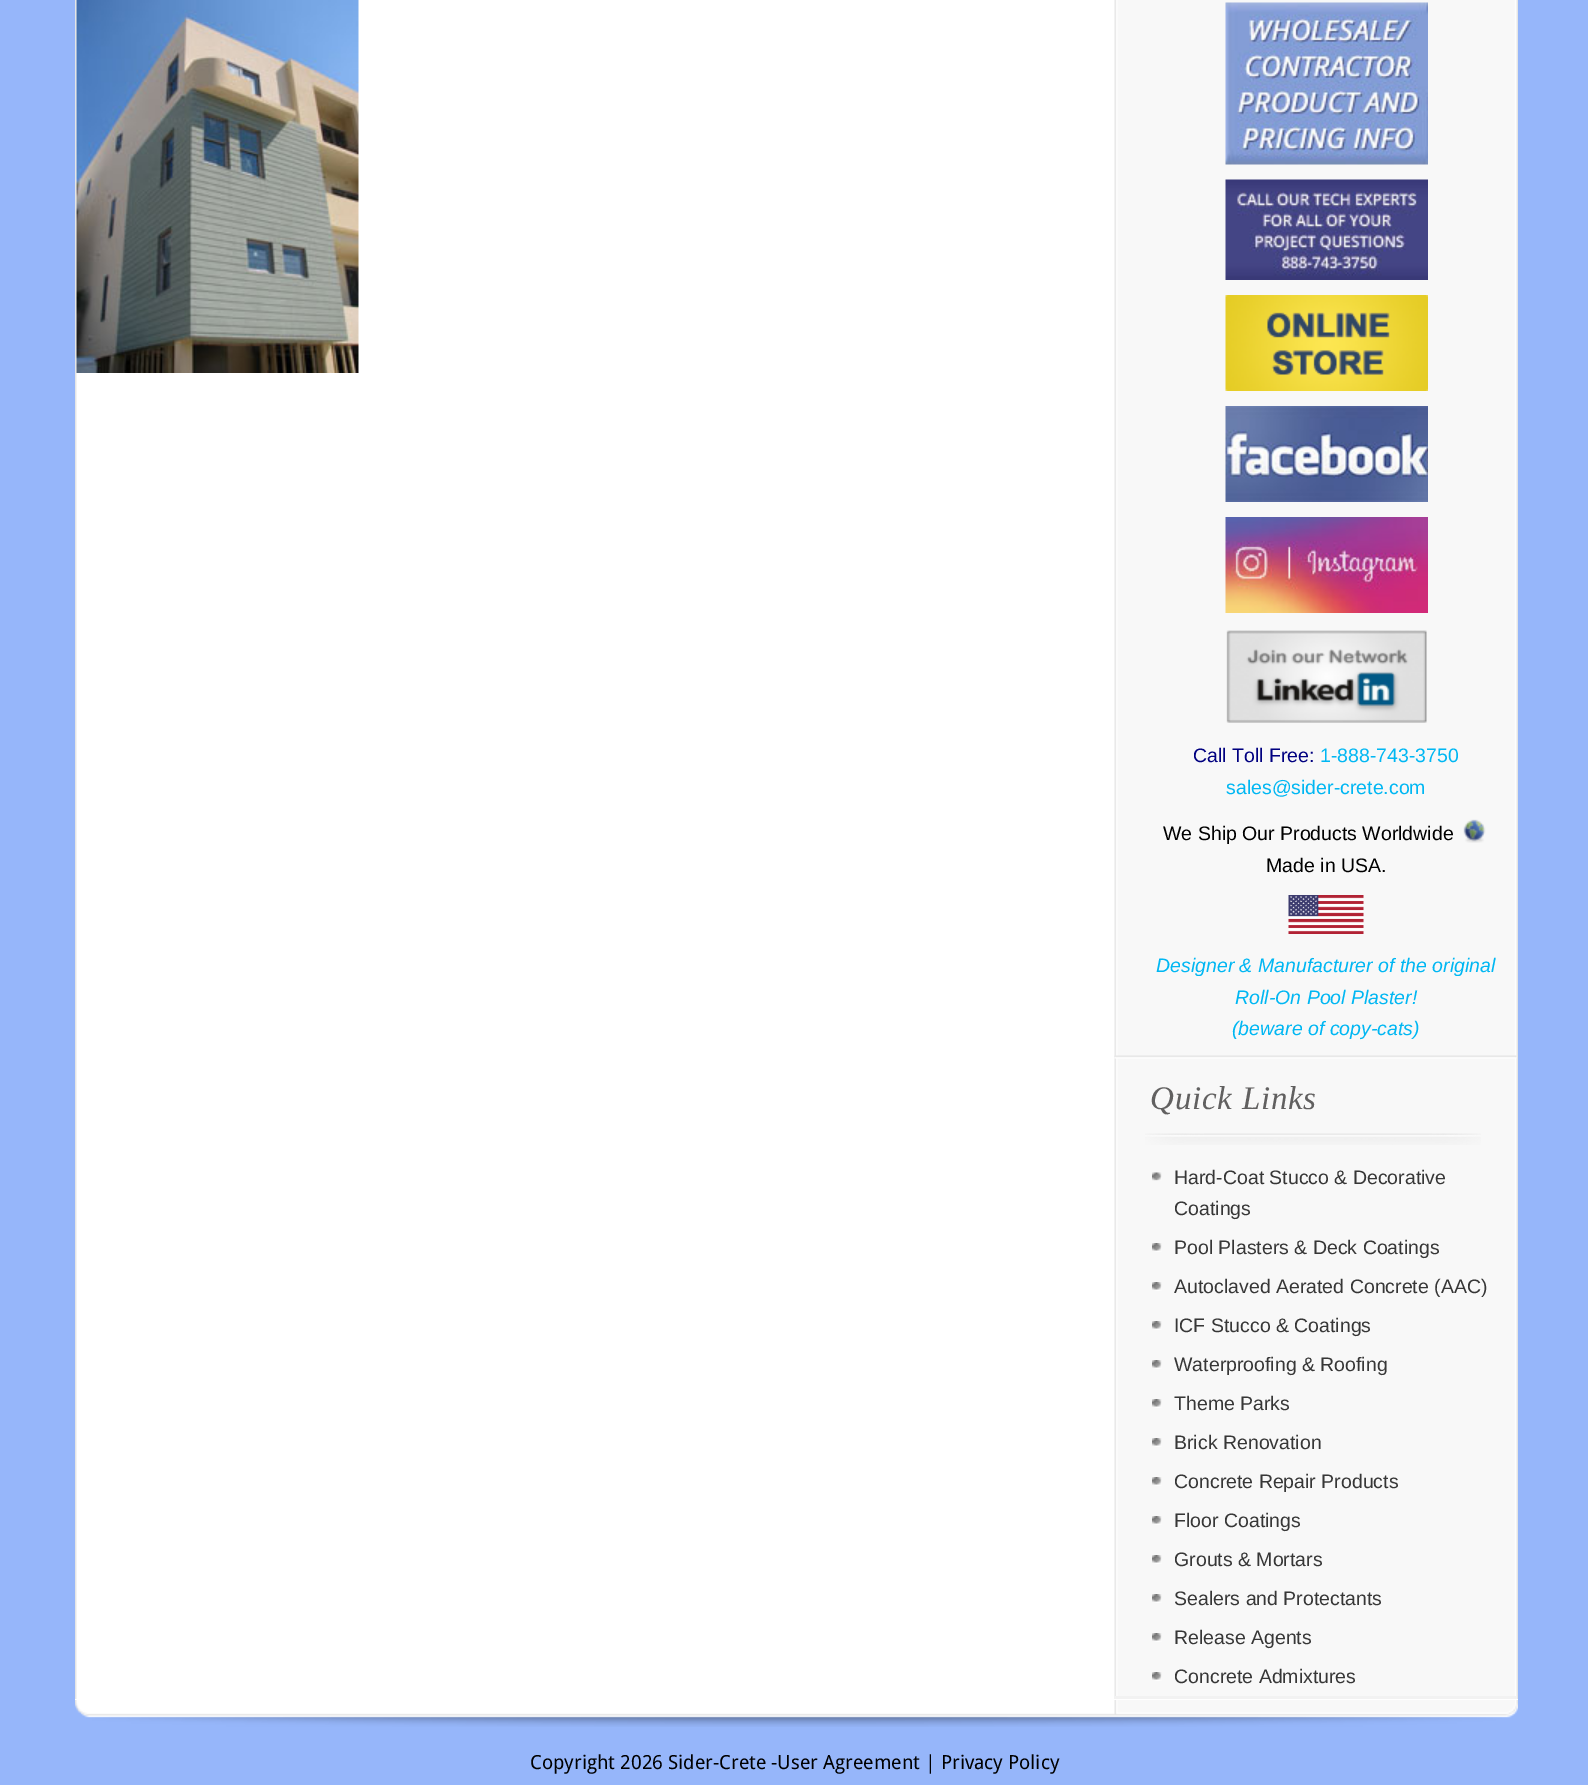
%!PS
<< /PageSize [1588 1785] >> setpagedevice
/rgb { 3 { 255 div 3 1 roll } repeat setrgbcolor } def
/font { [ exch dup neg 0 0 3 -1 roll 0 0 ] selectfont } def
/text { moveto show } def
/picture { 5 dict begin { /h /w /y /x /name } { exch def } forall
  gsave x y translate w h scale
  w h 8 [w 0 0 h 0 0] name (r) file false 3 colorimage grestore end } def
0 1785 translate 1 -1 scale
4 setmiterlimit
150 182 250 rgb
0 0 1588 1785 rectfill
255 255 255 rgb
75 1699 1443 1 rectfill
(img_01.rgb) 75 0 1443 1699 picture
(img_02.rgb) 76 0 283 373 picture
(img_03.rgb) 1114 1055 403 4 picture
(img_04.rgb) 1225 2 203 163 picture
(img_05.rgb) 1225 179 203 101 picture
(img_06.rgb) 1225 295 203 96 picture
(img_07.rgb) 1225 406 203 96 picture
(img_08.rgb) 1225 517 203 96 picture
(img_09.rgb) 1226 630 201 93 picture
(img_10.rgb) 1463 819 23 24 picture
(img_11.rgb) 1288 895 76 39 picture
242 242 242 rgb
1114 1696 403 3 rectfill
(img_12.rgb) 1145 1133 336 12 picture
(img_13.rgb) 1152 1172 10 9 picture
(img_14.rgb) 1152 1243 10 9 picture
(img_14.rgb) 1152 1282 10 9 picture
(img_14.rgb) 1152 1321 10 9 picture
(img_14.rgb) 1152 1360 10 9 picture
(img_14.rgb) 1152 1399 10 9 picture
(img_14.rgb) 1152 1438 10 9 picture
(img_14.rgb) 1152 1477 10 9 picture
(img_14.rgb) 1152 1516 10 9 picture
(img_14.rgb) 1152 1555 10 9 picture
(img_14.rgb) 1152 1594 10 9 picture
(img_14.rgb) 1152 1633 10 9 picture
(img_14.rgb) 1152 1672 10 9 picture
(img_15.rgb) 75 1700 1443 27 picture
/LiberationSans-Regular 19.5 font
0 0 128 rgb
(Call Toll Free:) 1193 762 text
0 183 243 rgb
(1-888-743-3750) 1320 762 text
(sales@sider-crete.com) 1226 794 text
0 0 0 rgb
(We Ship Our Products Worldwide) 1163 840 text
(Made in USA.) 1266 872 text
/LiberationSans-Italic 19.5 font
0 183 243 rgb
(Designer & Manufacturer of the original) 1156 972 text
(Roll-On Pool Plaster!) 1235 1004 text
(\(beware of copy-cats\)) 1232 1035 text
/LiberationSerif-Italic 33 font
97 96 96 rgb
1150 1109 moveto 0.75 0 (Quick Links) ashow
/LiberationSans-Regular 19.5 font
55 55 55 rgb
(Hard-Coat Stucco & Decorative) 1174 1184 text
(Coatings) 1174 1215 text
(Pool Plasters & Deck Coatings) 1174 1254 text
(Autoclaved Aerated Concrete \(AAC\)) 1174 1293 text
(ICF Stucco & Coatings) 1174 1332 text
(Waterproofing & Roofing) 1174 1371 text
(Theme Parks) 1174 1410 text
(Brick Renovation) 1174 1449 text
(Concrete Repair Products) 1174 1488 text
(Floor Coatings) 1174 1527 text
(Grouts & Mortars) 1174 1566 text
(Sealers and Protectants) 1174 1605 text
(Release Agents) 1174 1644 text
(Concrete Admixtures) 1174 1683 text
/DroidSans-Regular 19.5 font
0 0 0 rgb
(Copyright 2026 Sider-Crete -User Agreement | Privacy Policy) 530 1769 text
showpage
